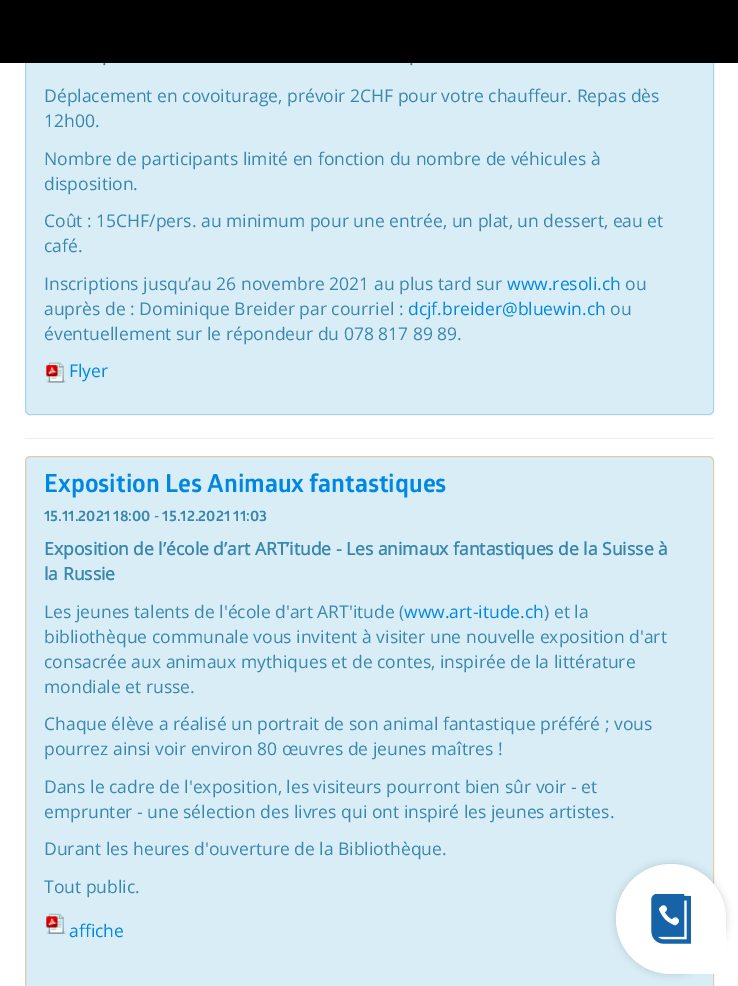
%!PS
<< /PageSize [738 986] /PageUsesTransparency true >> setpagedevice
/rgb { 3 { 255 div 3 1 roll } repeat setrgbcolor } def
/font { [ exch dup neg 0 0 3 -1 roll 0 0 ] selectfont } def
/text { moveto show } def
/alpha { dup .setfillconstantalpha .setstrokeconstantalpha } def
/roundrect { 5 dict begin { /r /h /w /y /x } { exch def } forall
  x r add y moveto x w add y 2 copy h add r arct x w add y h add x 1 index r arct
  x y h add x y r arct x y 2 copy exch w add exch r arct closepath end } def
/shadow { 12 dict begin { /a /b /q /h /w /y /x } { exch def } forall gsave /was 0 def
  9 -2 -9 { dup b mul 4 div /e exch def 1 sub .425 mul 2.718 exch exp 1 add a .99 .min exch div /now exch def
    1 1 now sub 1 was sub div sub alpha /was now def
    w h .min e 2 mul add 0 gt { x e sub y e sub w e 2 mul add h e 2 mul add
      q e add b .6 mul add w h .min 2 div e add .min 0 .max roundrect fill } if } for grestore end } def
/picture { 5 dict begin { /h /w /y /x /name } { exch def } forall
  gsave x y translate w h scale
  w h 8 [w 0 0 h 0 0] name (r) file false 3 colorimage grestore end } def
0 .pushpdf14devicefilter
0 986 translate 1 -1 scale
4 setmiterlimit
255 255 255 rgb
0 0 738 986 rectfill
217 237 247 rgb
25 -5 689 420 5 roundrect fill
0.3 alpha
49 149 216 rgb
25.5 -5.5 688 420 4.5 roundrect stroke
1 alpha
(img_01.rgb) 46 362 20 21 picture
238 238 238 rgb
25 438 689 1 rectfill
217 237 247 rgb
25 456 689 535 5 roundrect fill
0.3 alpha
240 125 0 rgb
25.5 456.5 688 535 4.5 roundrect stroke
1 alpha
(img_02.rgb) 46 913 20 21 picture
0 0 0 rgb
616 864 110 110 55 4 0.16 shadow
255 255 255 rgb
671 864 moveto 30.5 0 55 24.5 55 55 rcurveto 0 55 rlineto -55 0 rlineto -30.5 0 -55 -24.5 -55 -55 rcurveto 0 -30.5 24.5 -55 55 -55 rcurveto closepath fill
(img_03.rgb) 651 894 40 50 picture
/OpenSans-Regular 17.5 font
58 135 173 rgb
(.) 102 65 text
(.) 409 65 text
0 0 0 rgb
0 0 738 63 rectfill
58 135 173 rgb
(Déplacement en covoiturage, prévoir 2CHF pour votre chauffeur. Repas dès) 44 102 text
(12h00.) 44 127 text
(Nombre de participants limité en fonction du nombre de véhicules à) 44 165 text
(disposition.) 44 190 text
(Coût : 15CHF/pers. au minimum pour une entrée, un plat, un dessert, eau et) 44 227 text
(café.) 44 252 text
(Inscriptions jusqu’au 26 novembre 2021 au plus tard sur) 44 290 text
0 135 226 rgb
(www.resoli.ch) 507 290 text
58 135 173 rgb
(ou) 625 290 text
(auprès de : Dominique Breider par courriel :) 44 315 text
0 135 226 rgb
(dcjf.breider@bluewin.ch) 408 315 text
58 135 173 rgb
(ou) 610 315 text
(éventuellement sur le répondeur du 078 817 89 89.) 44 340 text
0 135 226 rgb
(Flyer) 69 377 text
/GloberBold-Bold 25 font
(Exposition Les Animaux fantastiques) 44 492 text
/GloberBold-Bold 15 font
58 135 173 rgb
(15.11.2021 18:00 - 15.12.2021 11:03) 44 521 text
/OpenSans-Bold 17.5 font
(Exposition de l’école d’art ART’itude - Les animaux fantastiques de la Suisse à) 44 555 text
(la Russie) 44 580 text
/OpenSans-Regular 17.5 font
(Les jeunes talents de l'école d'art ART'itude \() 44 618 text
0 135 226 rgb
(www.art-itude.ch) 404 618 text
58 135 173 rgb
(\) et la) 544 618 text
(bibliothèque communale vous invitent à visiter une nouvelle exposition d'art) 44 643 text
(consacrée aux animaux mythiques et de contes, inspirée de la littérature) 44 668 text
(mondiale et russe.) 44 693 text
(Chaque élève a réalisé un portrait de son animal fantastique préféré ; vous) 44 730 text
(pourrez ainsi voir environ 80 œuvres de jeunes maîtres !) 44 755 text
(Dans le cadre de l'exposition, les visiteurs pourront bien sûr voir - et) 44 793 text
(emprunter - une sélection des livres qui ont inspiré les jeunes artistes.) 44 818 text
(Durant les heures d'ouverture de la Bibliothèque.) 44 855 text
(Tout public.) 44 893 text
0 135 226 rgb
(affiche) 69 937 text
.poppdf14devicefilter showpage
